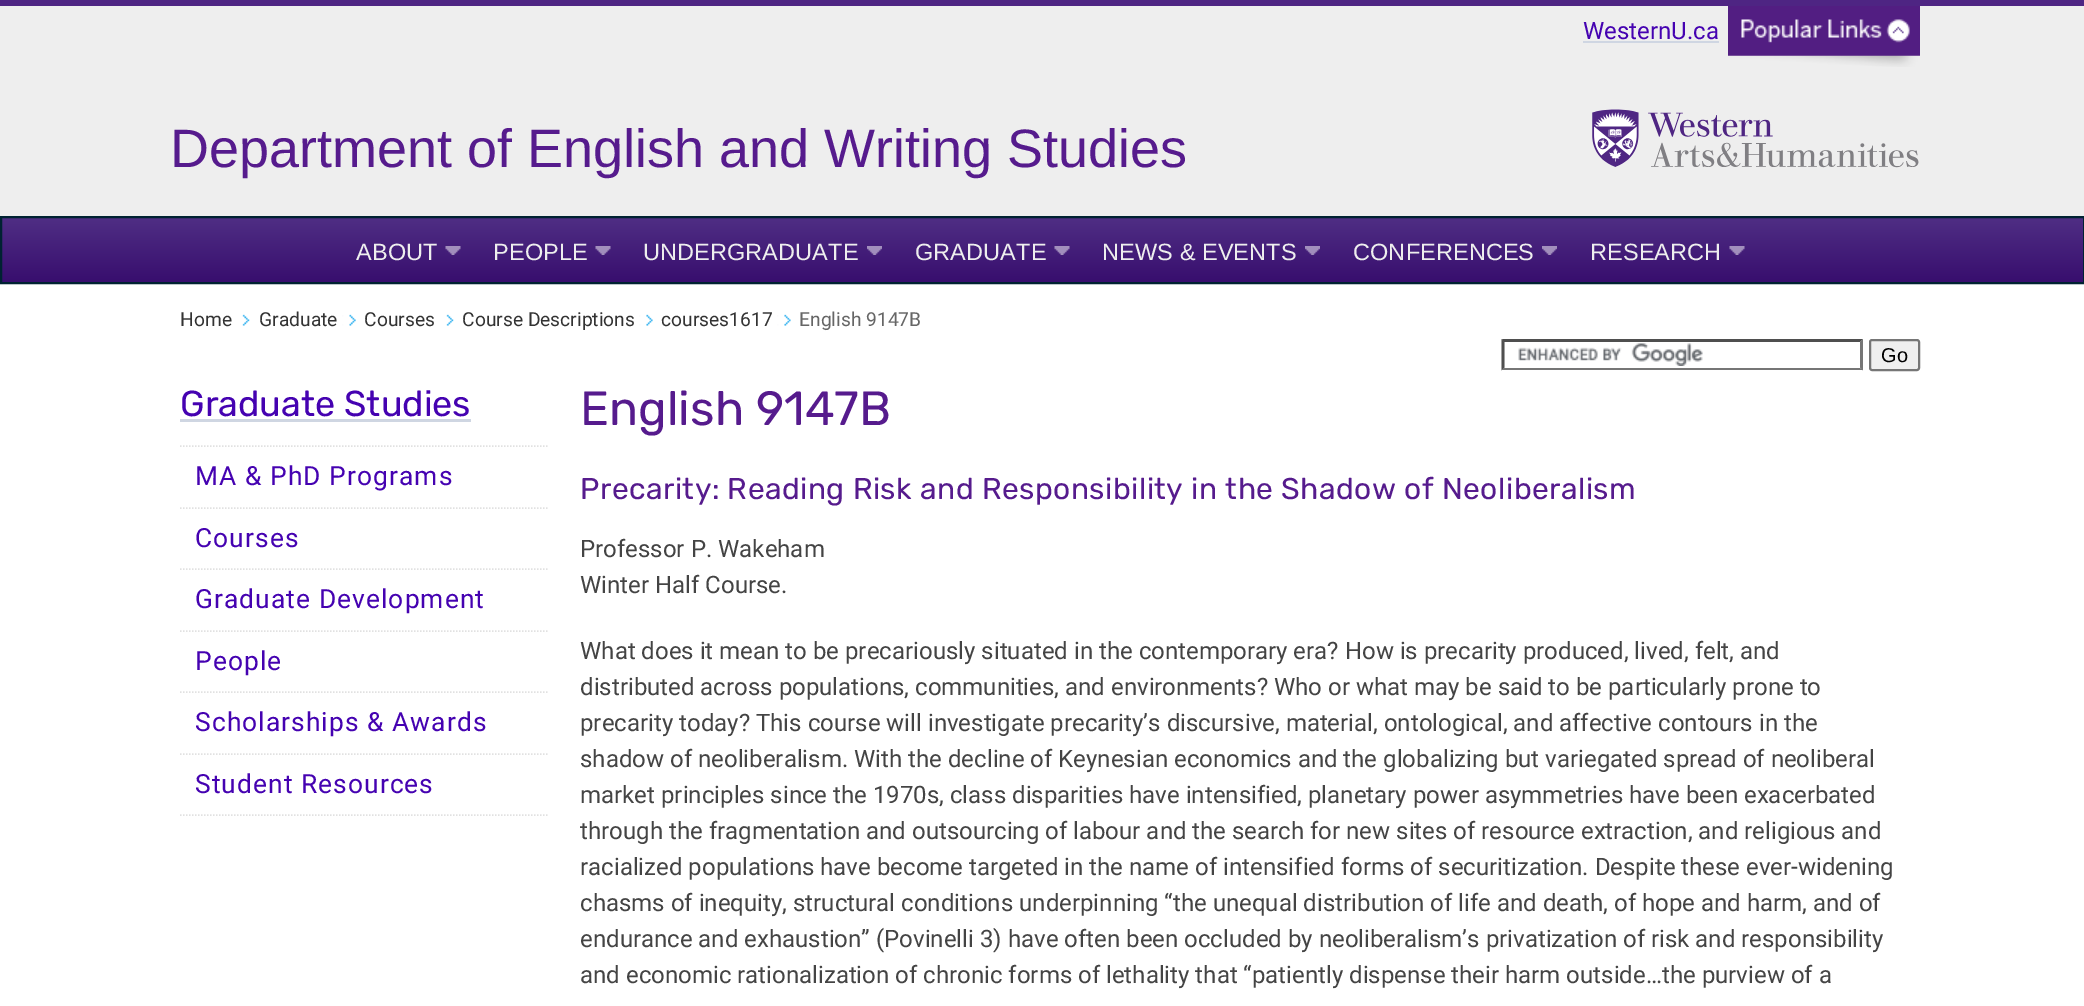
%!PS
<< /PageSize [2084 1006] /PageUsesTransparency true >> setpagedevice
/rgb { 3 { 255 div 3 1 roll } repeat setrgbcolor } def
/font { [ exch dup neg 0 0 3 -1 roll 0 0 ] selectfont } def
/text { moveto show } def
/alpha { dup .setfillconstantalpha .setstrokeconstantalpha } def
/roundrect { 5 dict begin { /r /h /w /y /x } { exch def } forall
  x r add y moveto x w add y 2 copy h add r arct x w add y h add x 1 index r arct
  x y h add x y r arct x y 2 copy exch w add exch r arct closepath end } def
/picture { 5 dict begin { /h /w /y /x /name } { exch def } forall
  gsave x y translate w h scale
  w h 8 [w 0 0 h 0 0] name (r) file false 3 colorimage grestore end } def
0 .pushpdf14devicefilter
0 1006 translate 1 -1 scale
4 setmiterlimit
238 238 238 rgb
0 0 2084 1006 rectfill
78 37 131 rgb
0 0 2084 6 rectfill
207 214 226 rgb
1583 41 136 2 rectfill
(img_01.rgb) 1728 6 192 61 picture
0.5 alpha
82 30 129 rgb
1728 55 192 1 rectfill
1 alpha
(img_02.rgb) 1592 109 327 59 picture
255 255 255 rgb
0 284 2084 722 rectfill
gsave 2 218 moveto 2081 0 rlineto 0 64 rlineto -2081 0 rlineto closepath clip newpath
<< /ShadingType 2 /ColorSpace /DeviceRGB /Coords [1.5 218 1.5 282] /Extend [true true] /Function << /FunctionType 2 /Domain [0 1] /C0 [0.31 0.18 0.518] /C1 [0.22 0.055 0.431] /N 1 >> >> shfill grestore
0 34 50 rgb
2 setlinewidth
1 217 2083 66 rectstroke
(img_03.rgb) 445 246 16 9 picture
(img_04.rgb) 595 246 16 9 picture
(img_05.rgb) 867 246 15 9 picture
(img_04.rgb) 1054 246 16 9 picture
(img_05.rgb) 1305 246 15 9 picture
(img_05.rgb) 1542 246 15 9 picture
(img_03.rgb) 1729 246 16 9 picture
(img_06.rgb) 242 314 8 12 picture
(img_07.rgb) 342 314 14 12 picture
(img_08.rgb) 446 314 8 12 picture
(img_09.rgb) 639 314 14 12 picture
(img_09.rgb) 777 314 14 12 picture
(img_10.rgb) 1518 343 185 23 picture
79 79 79 rgb
1502 339 moveto 361 0 rlineto -3 3 rlineto -356 0 rlineto closepath fill
118 118 118 rgb
1863 339 moveto 0 31.5 rlineto -3 -3 rlineto 0 -25.5 rlineto closepath fill
1863 370 moveto -361 0 rlineto 2 -2 rlineto 356 0 rlineto closepath fill
79 79 79 rgb
1501.5 370.5 moveto 0 -31.5 rlineto 3 3 rlineto 0 25.5 rlineto closepath fill
239 239 239 rgb
1870 340 49 30 2 roundrect gsave fill grestore
118 118 118 rgb
stroke
207 214 226 rgb
180 419 291 3 rectfill
225 225 225 rgb
1.5 setlinewidth
[1.5 1.5] 0 setdash
180 446 moveto 367.5 0 rlineto stroke
180 508 moveto 367.5 0 rlineto stroke
180 569 moveto 367.5 0 rlineto stroke
180 631 moveto 367.5 0 rlineto stroke
180 692 moveto 367.5 0 rlineto stroke
180 754 moveto 367.5 0 rlineto stroke
180 815 moveto 367.5 0 rlineto stroke
/Roboto-Regular 24 font
69 2 177 rgb
(WesternU.ca) 1583 39 text
/LiberationSans-Regular 54 font
86 27 141 rgb
(Department of English and Writing Studies) 170 167 text
/LiberationSans-Regular 23.5 font
238 238 238 rgb
356 260 moveto 0.1 0 (ABOUT) ashow
493 260 moveto 0.1 0 (PEOPLE) ashow
643 260 moveto 0.1 0 (UNDERGRADUATE) ashow
915 260 moveto 0.1 0 (GRADUATE) ashow
1102 260 moveto 0.1 0 (NEWS & EVENTS) ashow
1353 260 moveto 0.1 0 (CONFERENCES) ashow
1590 260 moveto 0.1 0 (RESEARCH) ashow
/Roboto-Regular 19.25 font
51 51 51 rgb
(Home) 180 326 text
(Graduate) 259 326 text
(Courses) 364 326 text
(Course Descriptions) 462 326 text
(courses1617) 661 326 text
102 102 102 rgb
(English 9147B) 799 326 text
/LiberationSans-Regular 20 font
0 0 0 rgb
(Go) 1881 362 text
/Rubik-Regular 36 font
69 2 177 rgb
(Graduate Studies) 180 416 text
/Roboto-Regular 26.4 font
195 485 moveto 1.05 0 (MA & PhD Programs) ashow
195 547 moveto 1.05 0 (Courses) ashow
195 608 moveto 1.05 0 (Graduate Development) ashow
195 670 moveto 1.05 0 (People) ashow
195 731 moveto 1.05 0 (Scholarships & Awards) ashow
195 793 moveto 1.05 0 (Student Resources) ashow
/Rubik-Regular 48 font
86 27 141 rgb
(English 9147B) 580 425 text
/Rubik-Regular 30 font
580 499 moveto 0.45 0 (Precarity: Reading Risk and Responsibility in the Shadow of Neoliberalism) ashow
/Roboto-Regular 24 font
68 68 68 rgb
(Professor P. Wakeham) 580 557 text
(Winter Half Course.) 580 593 text
(What does it mean to be precariously situated in the contemporary era? How is precarity produced, lived, felt, and) 580 659 text
(distributed across populations, communities, and environments? Who or what may be said to be particularly prone to) 580 695 text
(precarity today? This course will investigate precarity’s discursive, material, ontological, and affective contours in the) 580 731 text
(shadow of neoliberalism. With the decline of Keynesian economics and the globalizing but variegated spread of neoliberal) 580 767 text
(market principles since the 1970s, class disparities have intensified, planetary power asymmetries have been exacerbated) 580 803 text
(through the fragmentation and outsourcing of labour and the search for new sites of resource extraction, and religious and) 580 839 text
(racialized populations have become targeted in the name of intensified forms of securitization. Despite these ever-widening) 580 875 text
(chasms of inequity, structural conditions underpinning “the unequal distribution of life and death, of hope and harm, and of) 580 911 text
(endurance and exhaustion” \(Povinelli 3\) have often been occluded by neoliberalism’s privatization of risk and responsibility) 580 947 text
(and economic rationalization of chronic forms of lethality that “patiently dispense their harm outside…the purview of a) 580 983 text
.poppdf14devicefilter showpage
